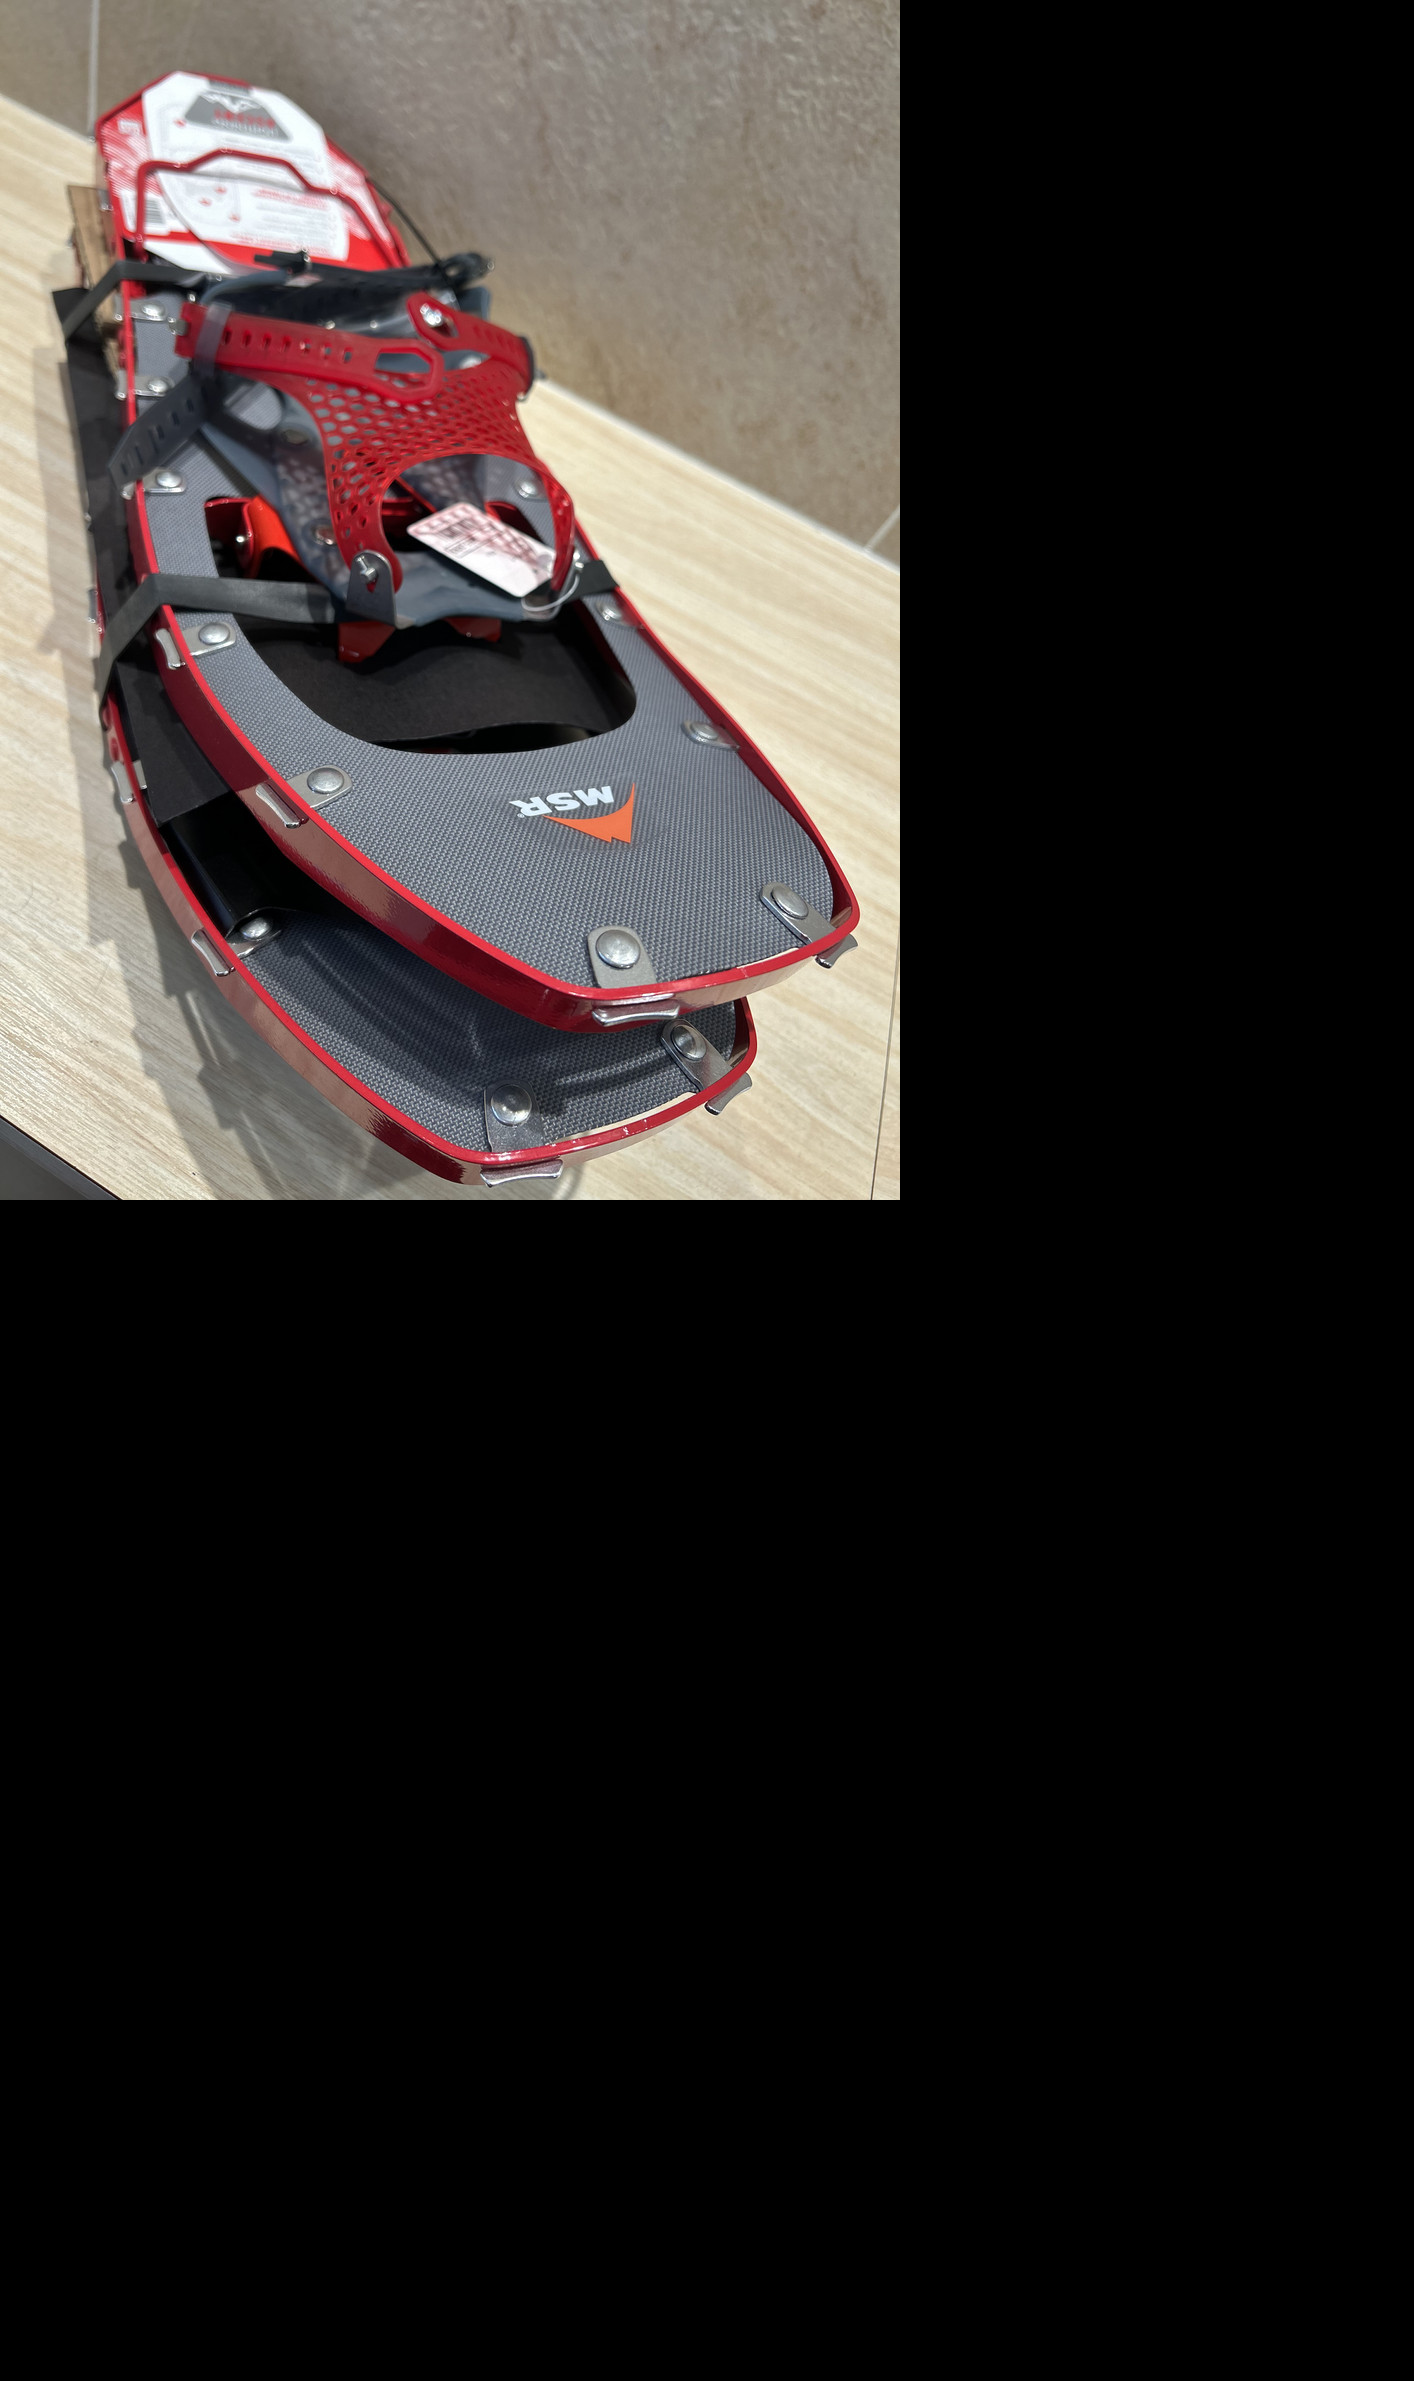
%!PS
<< /PageSize [1414 2381] >> setpagedevice
/rgb { 3 { 255 div 3 1 roll } repeat setrgbcolor } def
/picture { 5 dict begin { /h /w /y /x /name } { exch def } forall
  gsave x y translate w h scale
  w h 8 [w 0 0 h 0 0] name (r) file false 3 colorimage grestore end } def
0 2381 translate 1 -1 scale
4 setmiterlimit
0 0 0 rgb
0 0 1414 2381 rectfill
(img_01.rgb) 0 0 900 1200 picture
showpage
